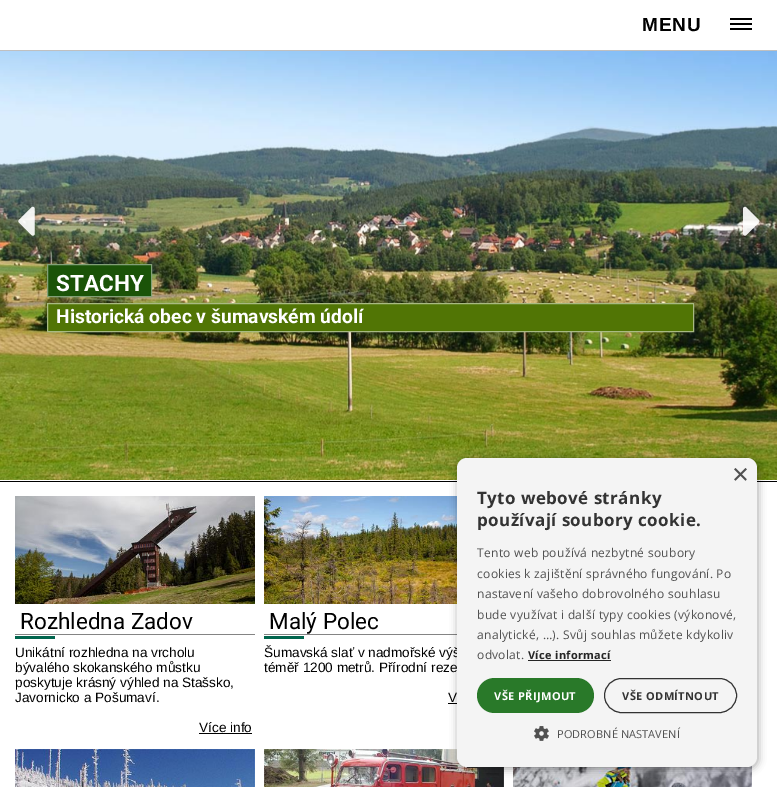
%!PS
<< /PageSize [777 787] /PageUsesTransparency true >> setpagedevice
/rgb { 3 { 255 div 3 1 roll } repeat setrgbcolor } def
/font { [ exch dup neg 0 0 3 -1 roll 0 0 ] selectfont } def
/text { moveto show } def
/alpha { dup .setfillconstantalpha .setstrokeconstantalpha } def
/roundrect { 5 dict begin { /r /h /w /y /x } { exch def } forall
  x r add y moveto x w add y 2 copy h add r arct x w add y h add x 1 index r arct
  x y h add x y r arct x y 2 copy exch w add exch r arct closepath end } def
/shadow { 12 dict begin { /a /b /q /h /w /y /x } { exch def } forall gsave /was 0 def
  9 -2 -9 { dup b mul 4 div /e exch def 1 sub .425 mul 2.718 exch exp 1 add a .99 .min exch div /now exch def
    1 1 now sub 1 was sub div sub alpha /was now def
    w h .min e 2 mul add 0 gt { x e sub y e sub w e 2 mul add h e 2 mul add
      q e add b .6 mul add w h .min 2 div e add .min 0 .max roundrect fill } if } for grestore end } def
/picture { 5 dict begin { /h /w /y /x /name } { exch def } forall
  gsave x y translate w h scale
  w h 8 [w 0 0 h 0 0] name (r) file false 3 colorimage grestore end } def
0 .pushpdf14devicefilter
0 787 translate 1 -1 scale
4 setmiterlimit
255 255 255 rgb
0 0 777 787 rectfill
192 192 192 rgb
0 50 777 1 rectfill
0 0 0 rgb
730 18 22 2 rectfill
730 23 22 2 rectfill
730 28 22 2 rectfill
0 481 777 1 rectfill
(img_03.rgb) 0 51 777 429 picture
(img_01.rgb) 18 206 17 30 picture
(img_02.rgb) 743 206 17 30 picture
27 83 8 rgb
47.5 264.5 moveto 104 0 rlineto 0 32 rlineto -104 0 rlineto closepath gsave fill grestore
130 160 119 rgb
stroke
81 117 5 rgb
47.5 303.5 moveto 646 0 rlineto 0 28 rlineto -646 0 rlineto closepath gsave fill grestore
168 186 130 rgb
stroke
(img_04.rgb) 15 496 240 108 picture
132 132 132 rgb
15 634 240 1 rectfill
0 101 77 rgb
15 636 40 3 rectfill
0 0 0 rgb
199 733 53 1 rectfill
(img_05.rgb) 264 496 193 108 picture
132 132 132 rgb
264 634 193 1 rectfill
0 101 77 rgb
264 636 40 3 rectfill
0 0 0 rgb
448 703 9 1 rectfill
(img_06.rgb) 15 749 240 38 picture
(img_07.rgb) 264 749 240 38 picture
(img_08.rgb) 513 765 239 22 picture
458 460 300 309 10 4 0.35 shadow
/LiberationSans-Bold 19 font
642 31 moveto 1 0 (MENU) ashow
/Roboto-Bold 22.5 font
255 255 255 rgb
(STACHY) 56 291 text
/Roboto-Bold 19.25 font
(Historická obec v šumavském údolí) 56 323 text
/Roboto-Regular 22.5 font
0 0 0 rgb
(Rozhledna Zadov) 20 629 text
/LiberationSans-Regular 13.6 font
(Unikátní rozhledna na vrcholu) 15 657 text
(bývalého skokanského můstku) 15 672 text
(poskytuje krásný výhled na Stašsko,) 15 687 text
(Javornicko a Pošumaví.) 15 702 text
(Více info) 199 732 text
/Roboto-Regular 22.5 font
(Malý Polec) 269 629 text
/LiberationSans-Regular 13.6 font
(Šumavská slať v nadmořské výš) 264 657 text
(téměř 1200 metrů. Přírodní reze) 264 672 text
(V) 448 702 text
244 244 244 rgb
457 458 300 309 10 roundrect fill
/LiberationSans-Regular 29 font
80 80 80 rgb
(×) 732 484 text
/OpenSans-Bold 17 font
51 51 51 rgb
477 504 moveto 0.4 0 (Tyto webové stránky) ashow
477 526 moveto 0.4 0 (používají soubory cookie.) ashow
/OpenSans-Regular 12 font
80 80 80 rgb
477 557 moveto 0.3 0 (Tento web používá nezbytné soubory) ashow
477 578 moveto 0.3 0 (cookies k zajištění správného fungování. Po) ashow
477 598 moveto 0.3 0 (nastavení vašeho dobrovolného souhlasu) ashow
477 619 moveto 0.3 0 (bude využívat i další typy cookies \(výkonové,) ashow
477 639 moveto 0.3 0 (analytické, …\). Svůj souhlas můžete kdykoliv) ashow
477 659 moveto 0.3 0 (odvolat.) ashow
/OpenSans-Bold 11 font
37 37 37 rgb
528 659 moveto 0.3 0 (Více informací) ashow
528 660 83 1 rectfill
41 121 41 rgb
477 678 117 35 17.5 roundrect fill
255 255 255 rgb
494 700 moveto 0.4 0 (VŠE PŘIJMOUT) ashow
51 51 51 rgb
604.5 678.5 132 34 17 roundrect stroke
622 700 moveto 0.4 0 (VŠE ODMÍTNOUT) ashow
(img_09.rgb) 534 726 15 15 picture
/OpenSans-Regular 11 font
80 80 80 rgb
557 738 moveto 0.1 0 (PODROBNÉ NASTAVENÍ) ashow
.poppdf14devicefilter showpage
